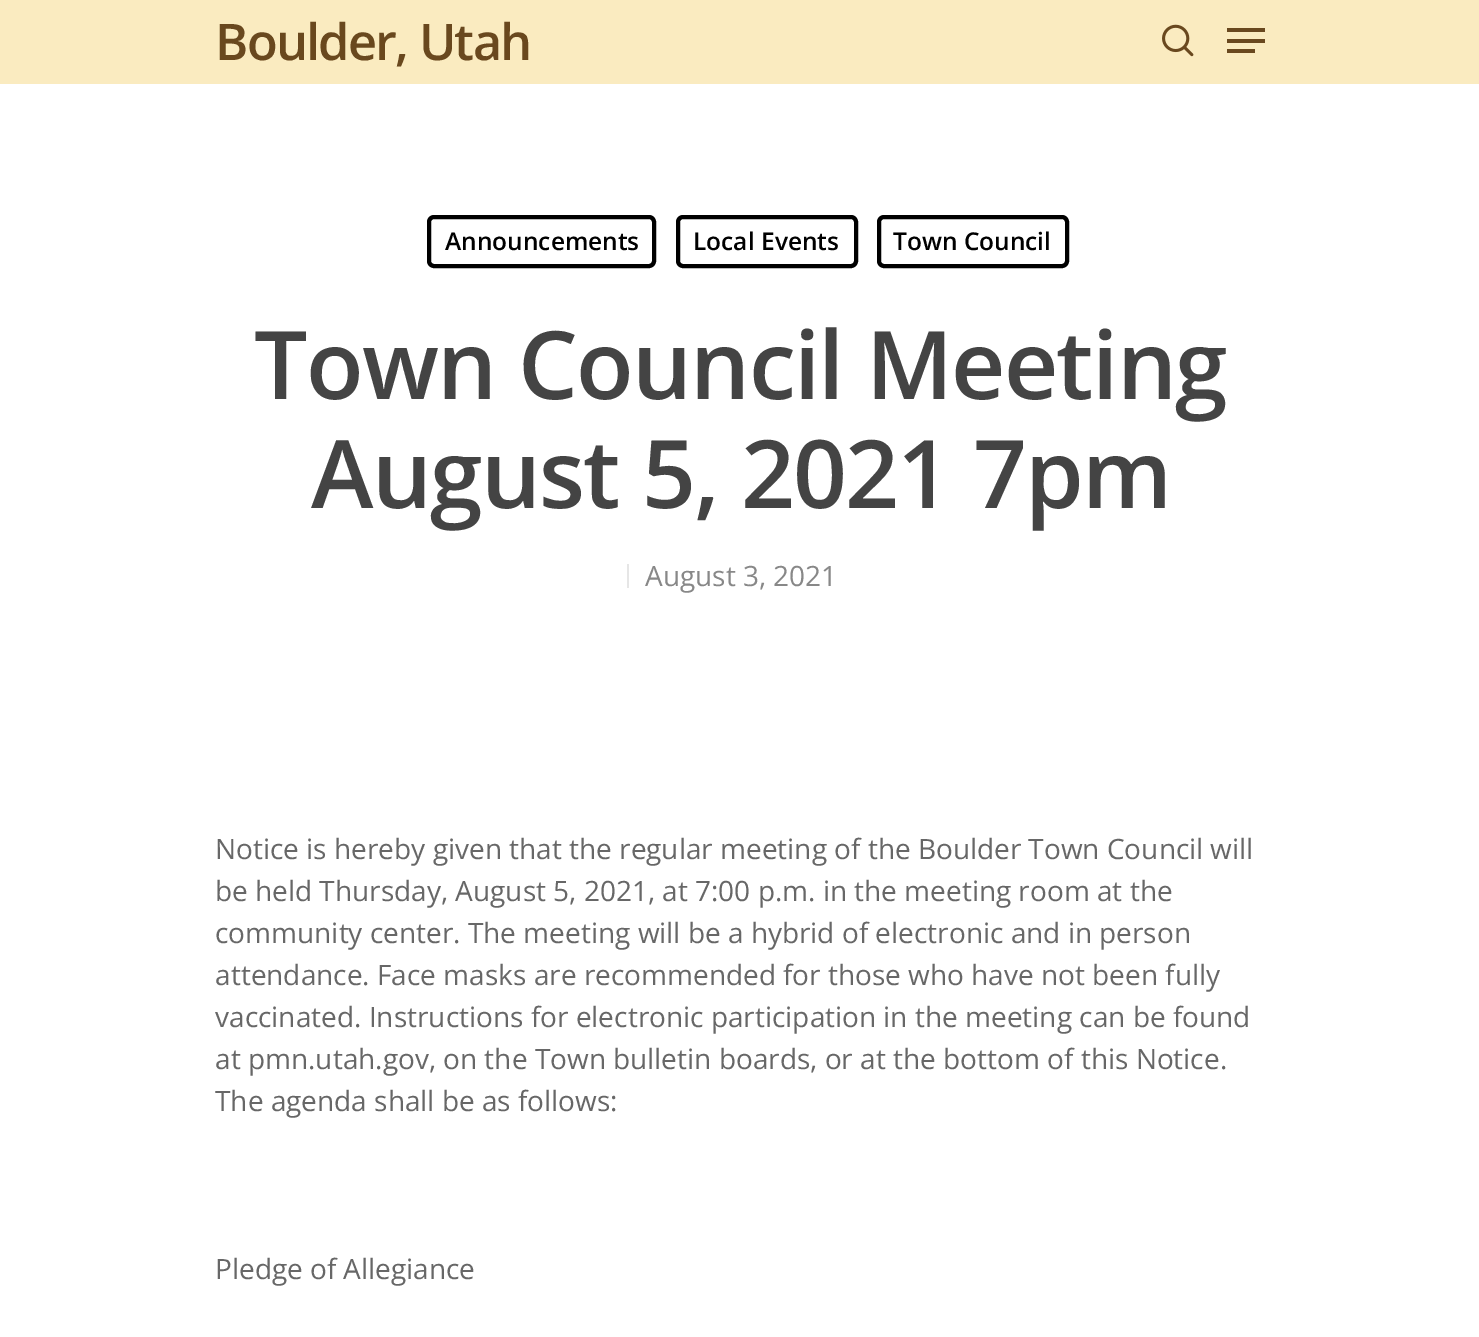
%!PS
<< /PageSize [1479 1337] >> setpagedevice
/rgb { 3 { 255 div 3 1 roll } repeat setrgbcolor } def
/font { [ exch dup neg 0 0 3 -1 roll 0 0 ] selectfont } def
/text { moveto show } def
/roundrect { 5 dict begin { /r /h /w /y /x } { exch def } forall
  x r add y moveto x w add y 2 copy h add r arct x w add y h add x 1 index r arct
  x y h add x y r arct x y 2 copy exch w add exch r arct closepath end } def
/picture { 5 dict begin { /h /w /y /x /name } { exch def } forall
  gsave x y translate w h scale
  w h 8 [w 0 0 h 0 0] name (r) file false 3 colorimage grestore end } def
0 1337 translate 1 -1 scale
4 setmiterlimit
255 255 255 rgb
0 0 1479 1337 rectfill
250 235 192 rgb
0 0 1479 84 rectfill
(img_01.rgb) 1162 24 32 33 picture
105 72 30 rgb
1227 28 38 4 rectfill
1227 49 28 4 rectfill
1227 39 38 4 rectfill
0 0 0 rgb
4 setlinewidth
429 217 225 49 5 roundrect stroke
678 217 178 49 5 roundrect stroke
879 217 188 49 5 roundrect stroke
230 230 230 rgb
627 564 2 24 rectfill
/OpenSans-SemiBold 50.5 font
105 72 30 rgb
215 60 moveto -1.75 0 (Boulder, Utah) ashow
/OpenSans-SemiBold 24.5 font
0 0 0 rgb
(Announcements) 445 250 text
(Local Events) 693 250 text
(Town Council) 893 250 text
/OpenSans-SemiBold 94.5 font
68 68 68 rgb
254 399 moveto -1.75 0 (Town Council Meeting) ashow
311 508 moveto -1.75 0 (August 5, 2021 7pm) ashow
/OpenSans-Regular 28 font
136 136 136 rgb
(August 3, 2021) 645 586 text
103 103 103 rgb
(Notice is hereby given that the regular meeting of the Boulder Town Council will) 215 859 text
(be held Thursday, August 5, 2021, at 7:00 p.m. in the meeting room at the) 215 901 text
(community center. The meeting will be a hybrid of electronic and in person) 215 943 text
(attendance. Face masks are recommended for those who have not been fully) 215 985 text
(vaccinated. Instructions for electronic participation in the meeting can be found) 215 1027 text
(at pmn.utah.gov, on the Town bulletin boards, or at the bottom of this Notice.) 215 1069 text
(The agenda shall be as follows:) 215 1111 text
(Pledge of Allegiance) 215 1279 text
showpage
